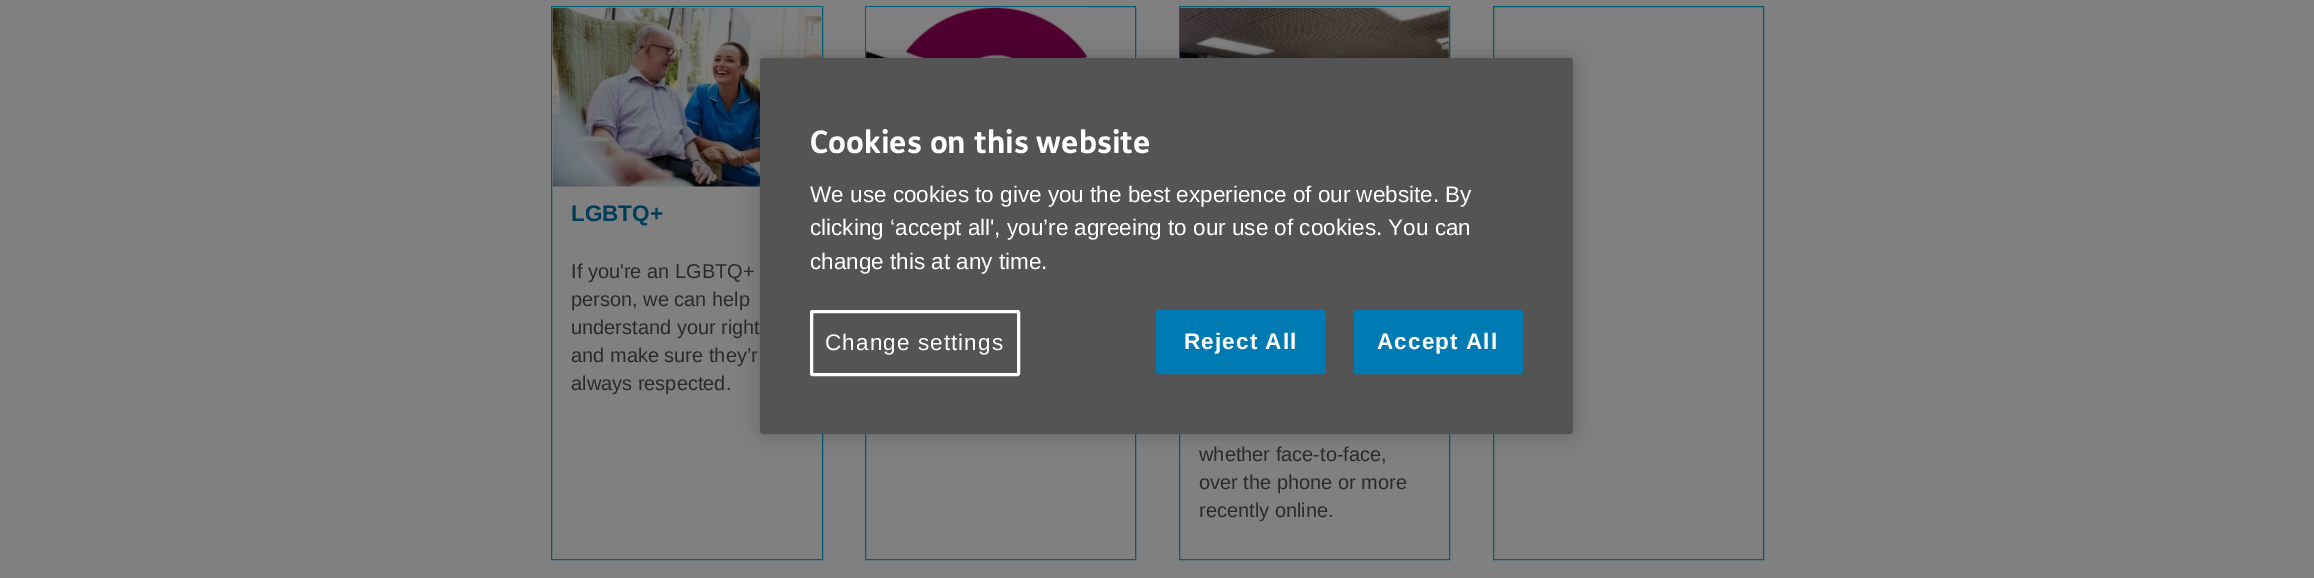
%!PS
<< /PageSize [2314 578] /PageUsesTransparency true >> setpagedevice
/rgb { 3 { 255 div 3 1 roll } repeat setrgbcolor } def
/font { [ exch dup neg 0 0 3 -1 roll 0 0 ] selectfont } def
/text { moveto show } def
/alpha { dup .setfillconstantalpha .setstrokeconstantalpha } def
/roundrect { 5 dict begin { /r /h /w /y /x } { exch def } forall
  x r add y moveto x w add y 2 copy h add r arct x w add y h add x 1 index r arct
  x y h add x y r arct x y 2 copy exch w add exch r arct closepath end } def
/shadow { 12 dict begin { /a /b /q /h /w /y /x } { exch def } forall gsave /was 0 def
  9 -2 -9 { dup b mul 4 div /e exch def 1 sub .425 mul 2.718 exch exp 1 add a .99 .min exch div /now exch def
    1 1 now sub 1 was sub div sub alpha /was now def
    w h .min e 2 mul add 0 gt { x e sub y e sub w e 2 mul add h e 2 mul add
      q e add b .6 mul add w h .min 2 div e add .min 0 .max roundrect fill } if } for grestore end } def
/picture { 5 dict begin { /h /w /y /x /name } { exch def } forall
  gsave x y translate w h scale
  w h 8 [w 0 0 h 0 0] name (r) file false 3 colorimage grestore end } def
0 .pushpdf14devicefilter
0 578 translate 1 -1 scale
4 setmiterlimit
128 128 128 rgb
0 0 2314 578 rectfill
0 94 117 rgb
551.5 6.5 271 553 rectstroke
(img_01.rgb) 552 7 270 180 picture
865.5 6.5 270 553 rectstroke
(img_02.rgb) 866 7 222 51 picture
1493.5 6.5 270 553 rectstroke
1179.5 6.5 270 553 rectstroke
(img_03.rgb) 1180 7 269 51 picture
0 0 0 rgb
760 58 813 376 3 11 0.2 shadow
/LiberationSans-Bold 22.5 font
0 61 89 rgb
(LGBTQ+) 571 221 text
/LiberationSans-Regular 20 font
42 42 42 rgb
(If you're an LGBTQ+) 571 278 text
(person, we can help) 571 306 text
(understand your right) 571 334 text
84 84 84 rgb
760 58 813 376 3 roundrect fill
0 122 178 rgb
1354.5 310.5 168 63 2 roundrect gsave fill grestore
stroke
/LiberationSans-Bold 22.5 font
255 255 255 rgb
1377 349 moveto 1.1 0 (Accept All) ashow
0 122 178 rgb
1156.5 310.5 168 63 2 roundrect gsave fill grestore
stroke
255 255 255 rgb
1184 349 moveto 1.1 0 (Reject All) ashow
3 setlinewidth
811.5 311.5 207 63 1 roundrect stroke
/LiberationSans-Regular 22.5 font
825 350 moveto 1.1 0 (Change settings) ashow
(change this at any time.) 810 269 text
(clicking ‘accept all', you’re agreeing to our use of cookies. You can) 810 235 text
(We use cookies to give you the best experience of our website. By) 810 202 text
/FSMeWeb-Bold 31.25 font
(Cookies on this website) 810 153 text
/LiberationSans-Regular 20 font
42 42 42 rgb
(and make sure they’r) 571 362 text
(always respected.) 571 390 text
(whether face-to-face,) 1199 461 text
(over the phone or more) 1199 489 text
(recently online.) 1199 517 text
.poppdf14devicefilter showpage
